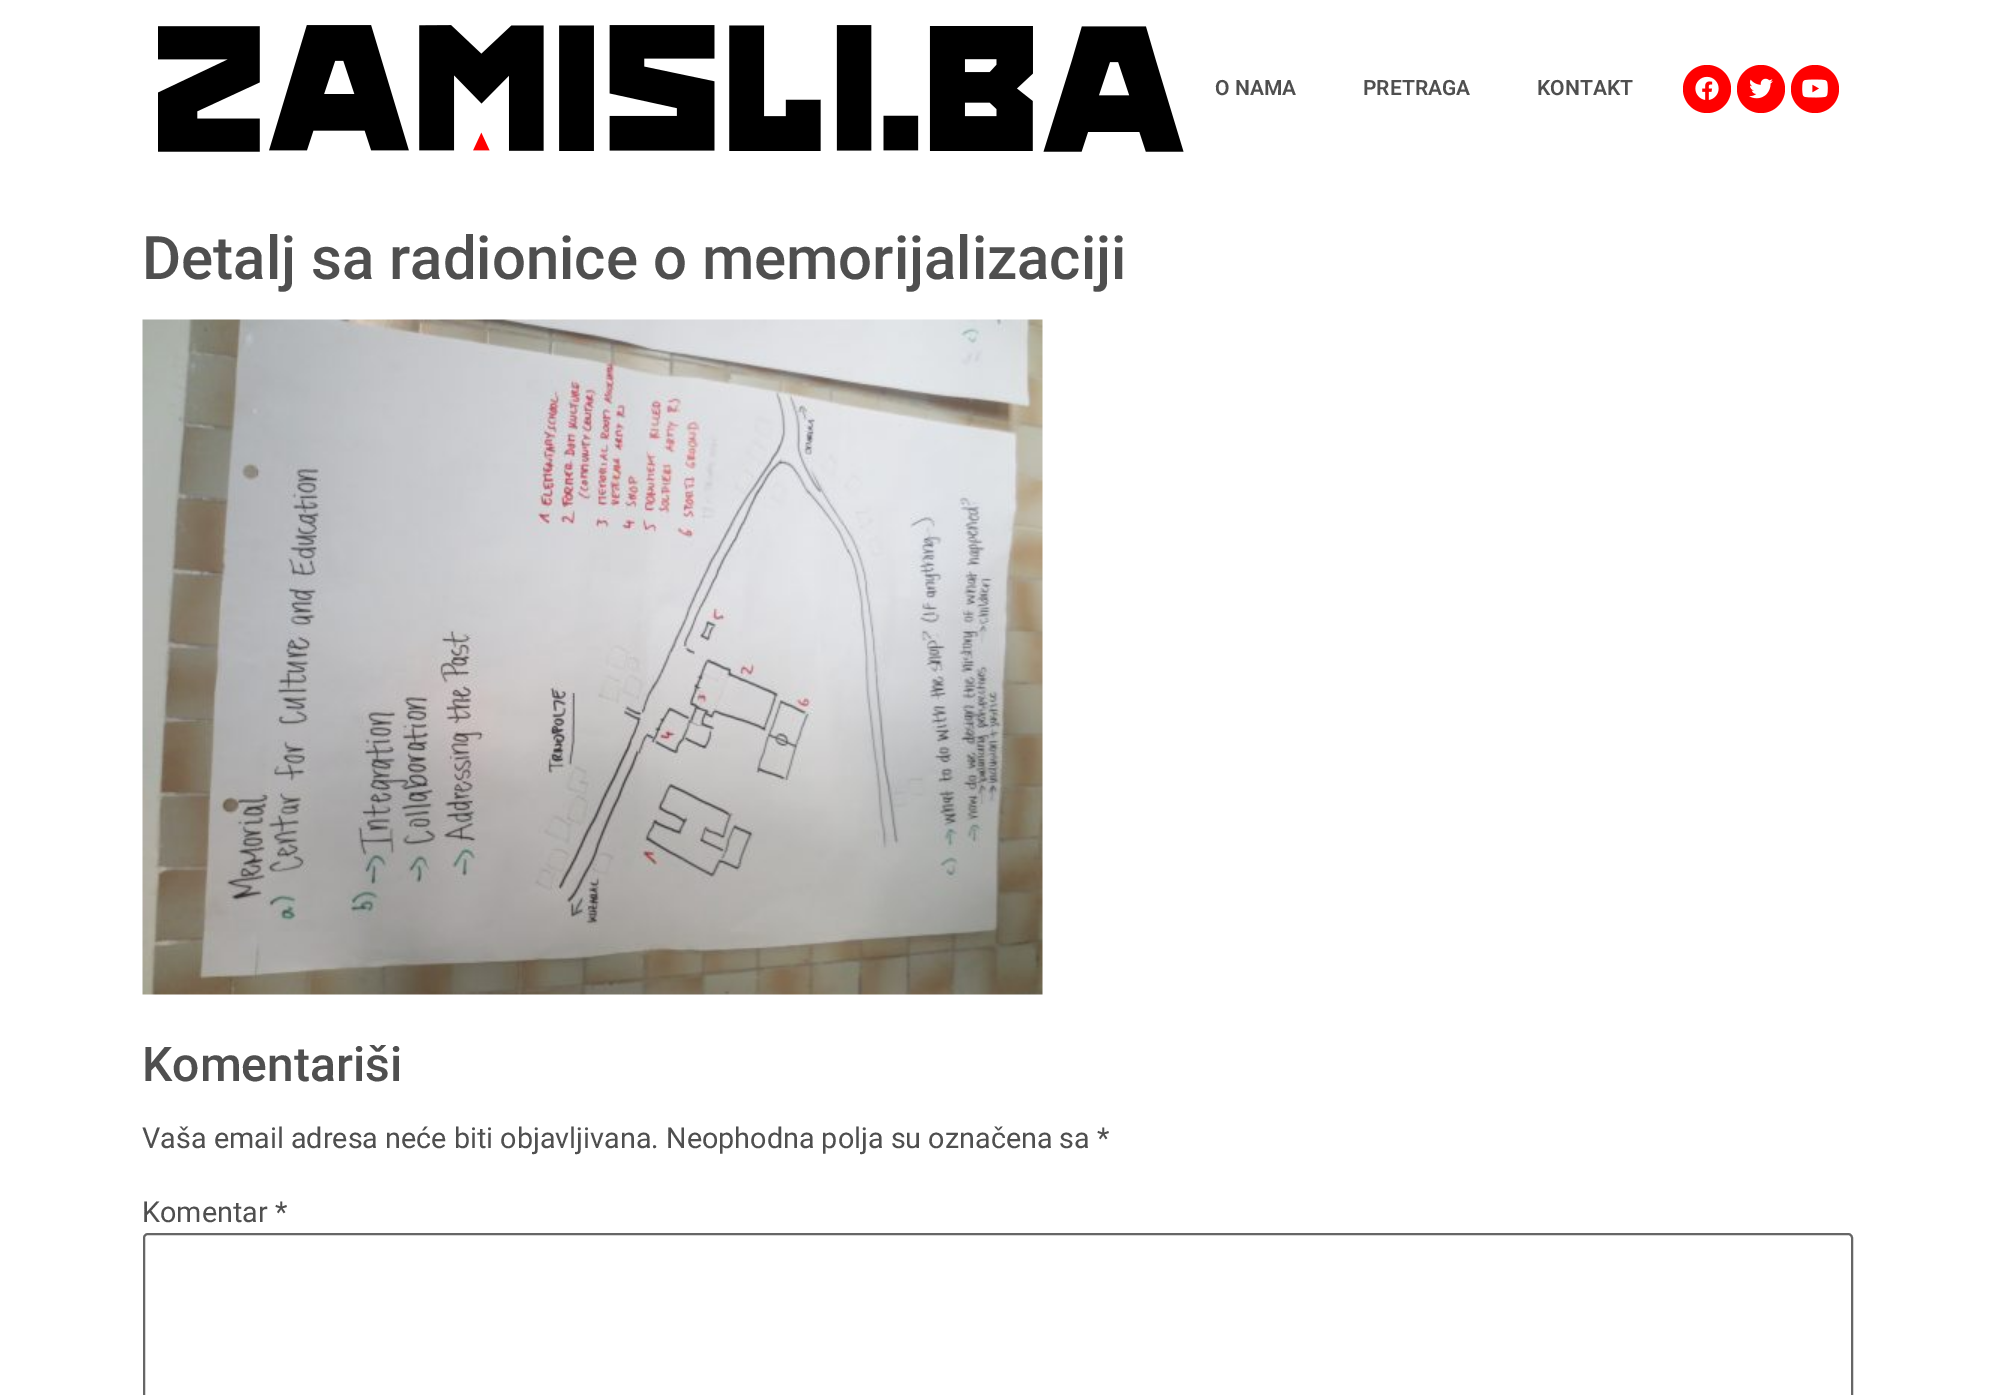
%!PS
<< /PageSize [1993 1395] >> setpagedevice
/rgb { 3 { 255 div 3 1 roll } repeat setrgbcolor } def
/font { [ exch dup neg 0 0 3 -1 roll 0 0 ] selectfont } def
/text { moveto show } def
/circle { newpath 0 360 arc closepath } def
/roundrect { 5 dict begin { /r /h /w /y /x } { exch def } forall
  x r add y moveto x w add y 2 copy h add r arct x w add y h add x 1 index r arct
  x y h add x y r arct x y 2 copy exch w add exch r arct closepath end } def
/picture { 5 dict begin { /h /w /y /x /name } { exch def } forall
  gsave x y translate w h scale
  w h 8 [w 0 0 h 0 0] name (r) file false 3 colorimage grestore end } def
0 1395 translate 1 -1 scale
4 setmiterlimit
255 255 255 rgb
0 0 1993 1395 rectfill
(img_01.rgb) 158 25 1026 127 picture
255 0 0 rgb
1707 89 24 circle fill
(img_02.rgb) 1695 76 24 24 picture
1761 89 24 circle fill
(img_03.rgb) 1749 78 24 21 picture
1815 89 24 circle fill
(img_04.rgb) 1802 79 26 19 picture
(img_05.rgb) 142 319 901 676 picture
102 102 102 rgb
2 setlinewidth
144 1234 1708 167 4 roundrect stroke
/Roboto-SemiBold 21 font
79 79 79 rgb
(O NAMA) 1215 95 text
(PRETRAGA) 1363 95 text
(KONTAKT) 1537 95 text
/Roboto-Medium 60 font
(Detalj sa radionice o memorijalizaciji) 142 279 text
/Roboto-Medium 48 font
(Komentariši) 142 1081 text
/Roboto-Regular 28.75 font
(Vaša email adresa neće biti objavljivana.) 142 1148 text
(Neophodna polja su označena sa *) 666 1148 text
(Komentar *) 142 1222 text
showpage
